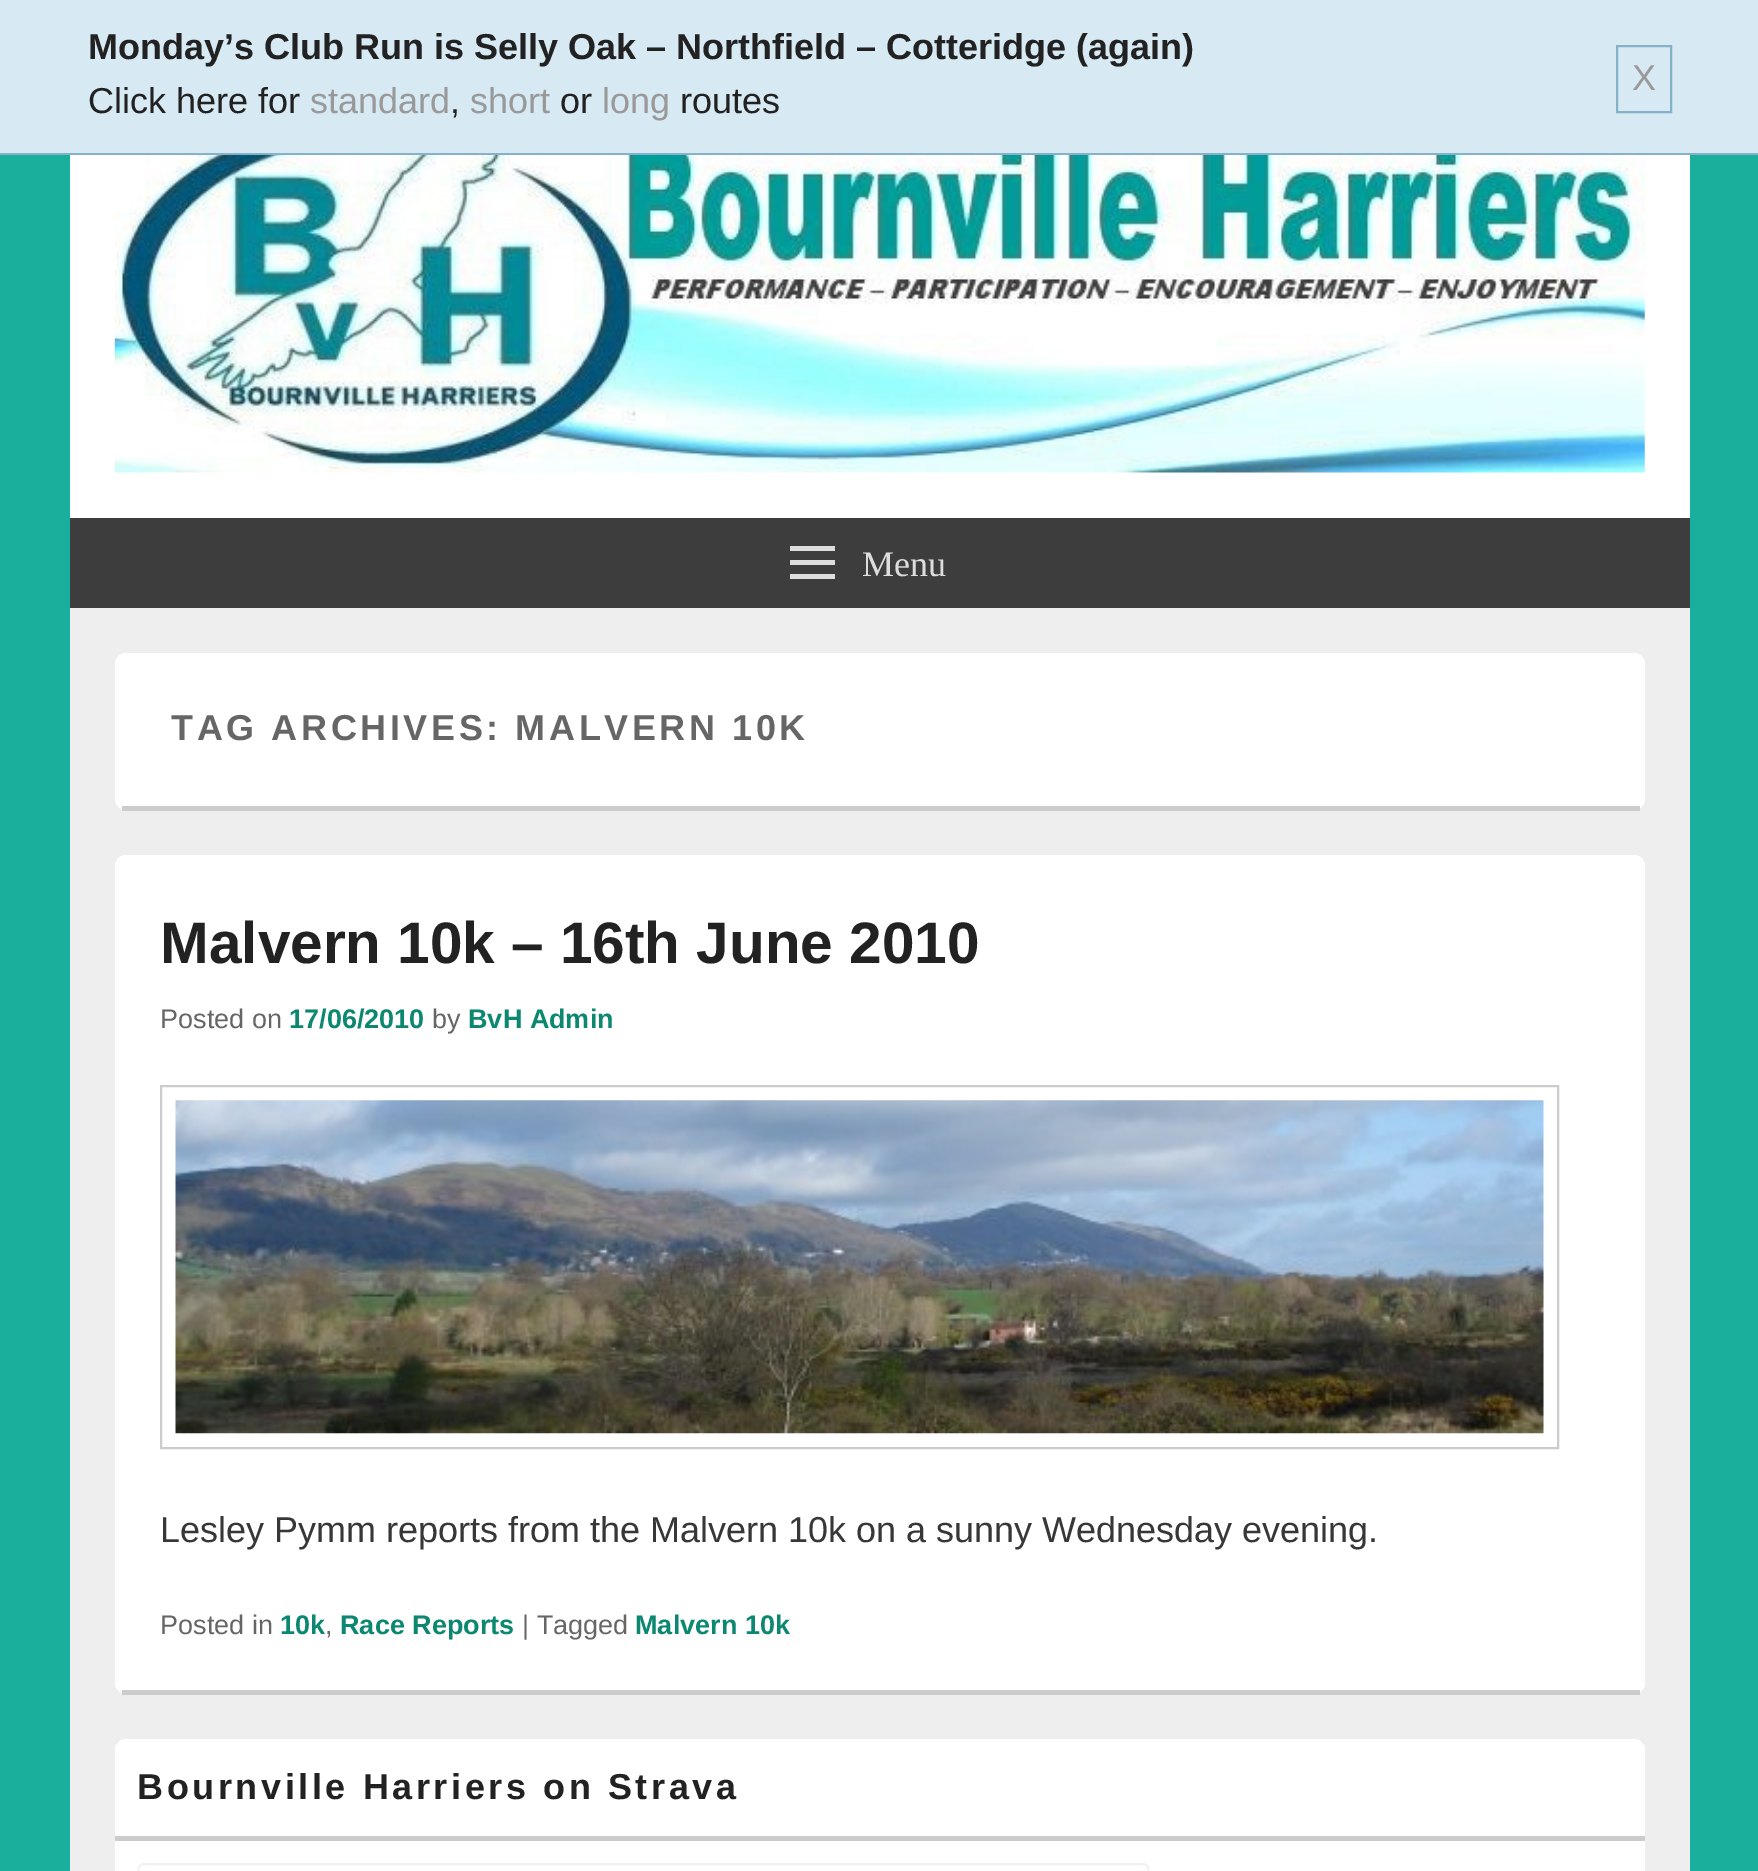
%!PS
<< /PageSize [1758 1871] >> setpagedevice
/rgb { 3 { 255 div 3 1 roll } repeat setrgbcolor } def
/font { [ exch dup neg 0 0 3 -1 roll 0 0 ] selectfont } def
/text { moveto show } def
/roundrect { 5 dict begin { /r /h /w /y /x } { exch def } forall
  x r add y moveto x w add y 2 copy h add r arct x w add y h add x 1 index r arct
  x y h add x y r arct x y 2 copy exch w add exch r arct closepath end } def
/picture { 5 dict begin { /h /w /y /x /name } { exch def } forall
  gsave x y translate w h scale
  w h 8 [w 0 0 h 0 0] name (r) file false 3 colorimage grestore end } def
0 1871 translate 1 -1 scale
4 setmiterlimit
26 175 156 rgb
0 0 1758 1871 rectfill
215 233 243 rgb
0 0 1758 153 rectfill
134 178 201 rgb
0 153 1758 2 rectfill
2 setlinewidth
1617 46 54 66 rectstroke
238 238 238 rgb
70 608 1620 1263 rectfill
255 255 255 rgb
70 155 1620 363 rectfill
(img_01.rgb) 114 155 1531 318 picture
61 61 61 rgb
70 518 1620 90 rectfill
221 221 221 rgb
790 579 moveto 0 -5 rlineto 45 0 rlineto 0 5 rlineto closepath 790 546 moveto 45 0 rlineto 0 5 rlineto -45 0 rlineto closepath 790 565 moveto 0 -5 rlineto 45 0 rlineto 0 5 rlineto closepath fill
255 255 255 rgb
115 653 1530 157 11 roundrect fill
204 204 204 rgb
122 806 1518 5 rectfill
255 255 255 rgb
115 855 1530 839 11 roundrect fill
204 204 204 rgb
122 1690 1518 5 rectfill
161 1086 1397 362 rectstroke
(img_02.rgb) 175 1100 1369 334 picture
255 255 255 rgb
115 1739 1530 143 11 roundrect fill
204 204 204 rgb
115 1836 1530 5 rectfill
(img_03.rgb) 137 1863 1013 8 picture
/LiberationSans-Bold 36 font
34 34 34 rgb
(Monday’s Club Run is Selly Oak – Northfield – Cotteridge \(again\)) 88 59 text
/LiberationSans-Regular 36 font
153 153 153 rgb
(X) 1632 90 text
34 34 34 rgb
(Click here for) 88 113 text
153 153 153 rgb
(standard) 310 113 text
34 34 34 rgb
(,) 450 113 text
153 153 153 rgb
(short) 470 113 text
34 34 34 rgb
(or) 560 113 text
153 153 153 rgb
(long) 602 113 text
34 34 34 rgb
(routes) 680 113 text
/LiberationSerif-Regular 36 font
221 221 221 rgb
(Menu) 862 576 text
/LiberationSans-Bold 36 font
102 102 102 rgb
171 740 moveto 3.6 0 (TAG ARCHIVES: MALVERN 10K) ashow
/LiberationSans-Bold 58.5 font
34 34 34 rgb
(Malvern 10k – 16th June 2010) 160 963 text
/LiberationSans-Regular 27 font
102 102 102 rgb
(Posted on) 160 1028 text
/LiberationSans-Bold 27 font
12 135 112 rgb
(17/06/2010) 289 1028 text
/LiberationSans-Regular 27 font
102 102 102 rgb
(by) 432 1028 text
/LiberationSans-Bold 27 font
12 135 112 rgb
(BvH Admin) 468 1028 text
/LiberationSans-Regular 36 font
55 55 55 rgb
(Lesley Pymm reports from the Malvern 10k on a sunny Wednesday evening.) 160 1542 text
/LiberationSans-Regular 27 font
102 102 102 rgb
(Posted in) 160 1634 text
/LiberationSans-Bold 27 font
12 135 112 rgb
(10k) 280 1634 text
/LiberationSans-Regular 27 font
102 102 102 rgb
(,) 325 1634 text
/LiberationSans-Bold 27 font
12 135 112 rgb
(Race Reports) 340 1634 text
/LiberationSans-Regular 27 font
102 102 102 rgb
(| Tagged) 522 1634 text
/LiberationSans-Bold 27 font
12 135 112 rgb
(Malvern 10k) 635 1634 text
/LiberationSans-Bold 36 font
34 34 34 rgb
137 1799 moveto 3.6 0 (Bournville Harriers on Strava) ashow
showpage
